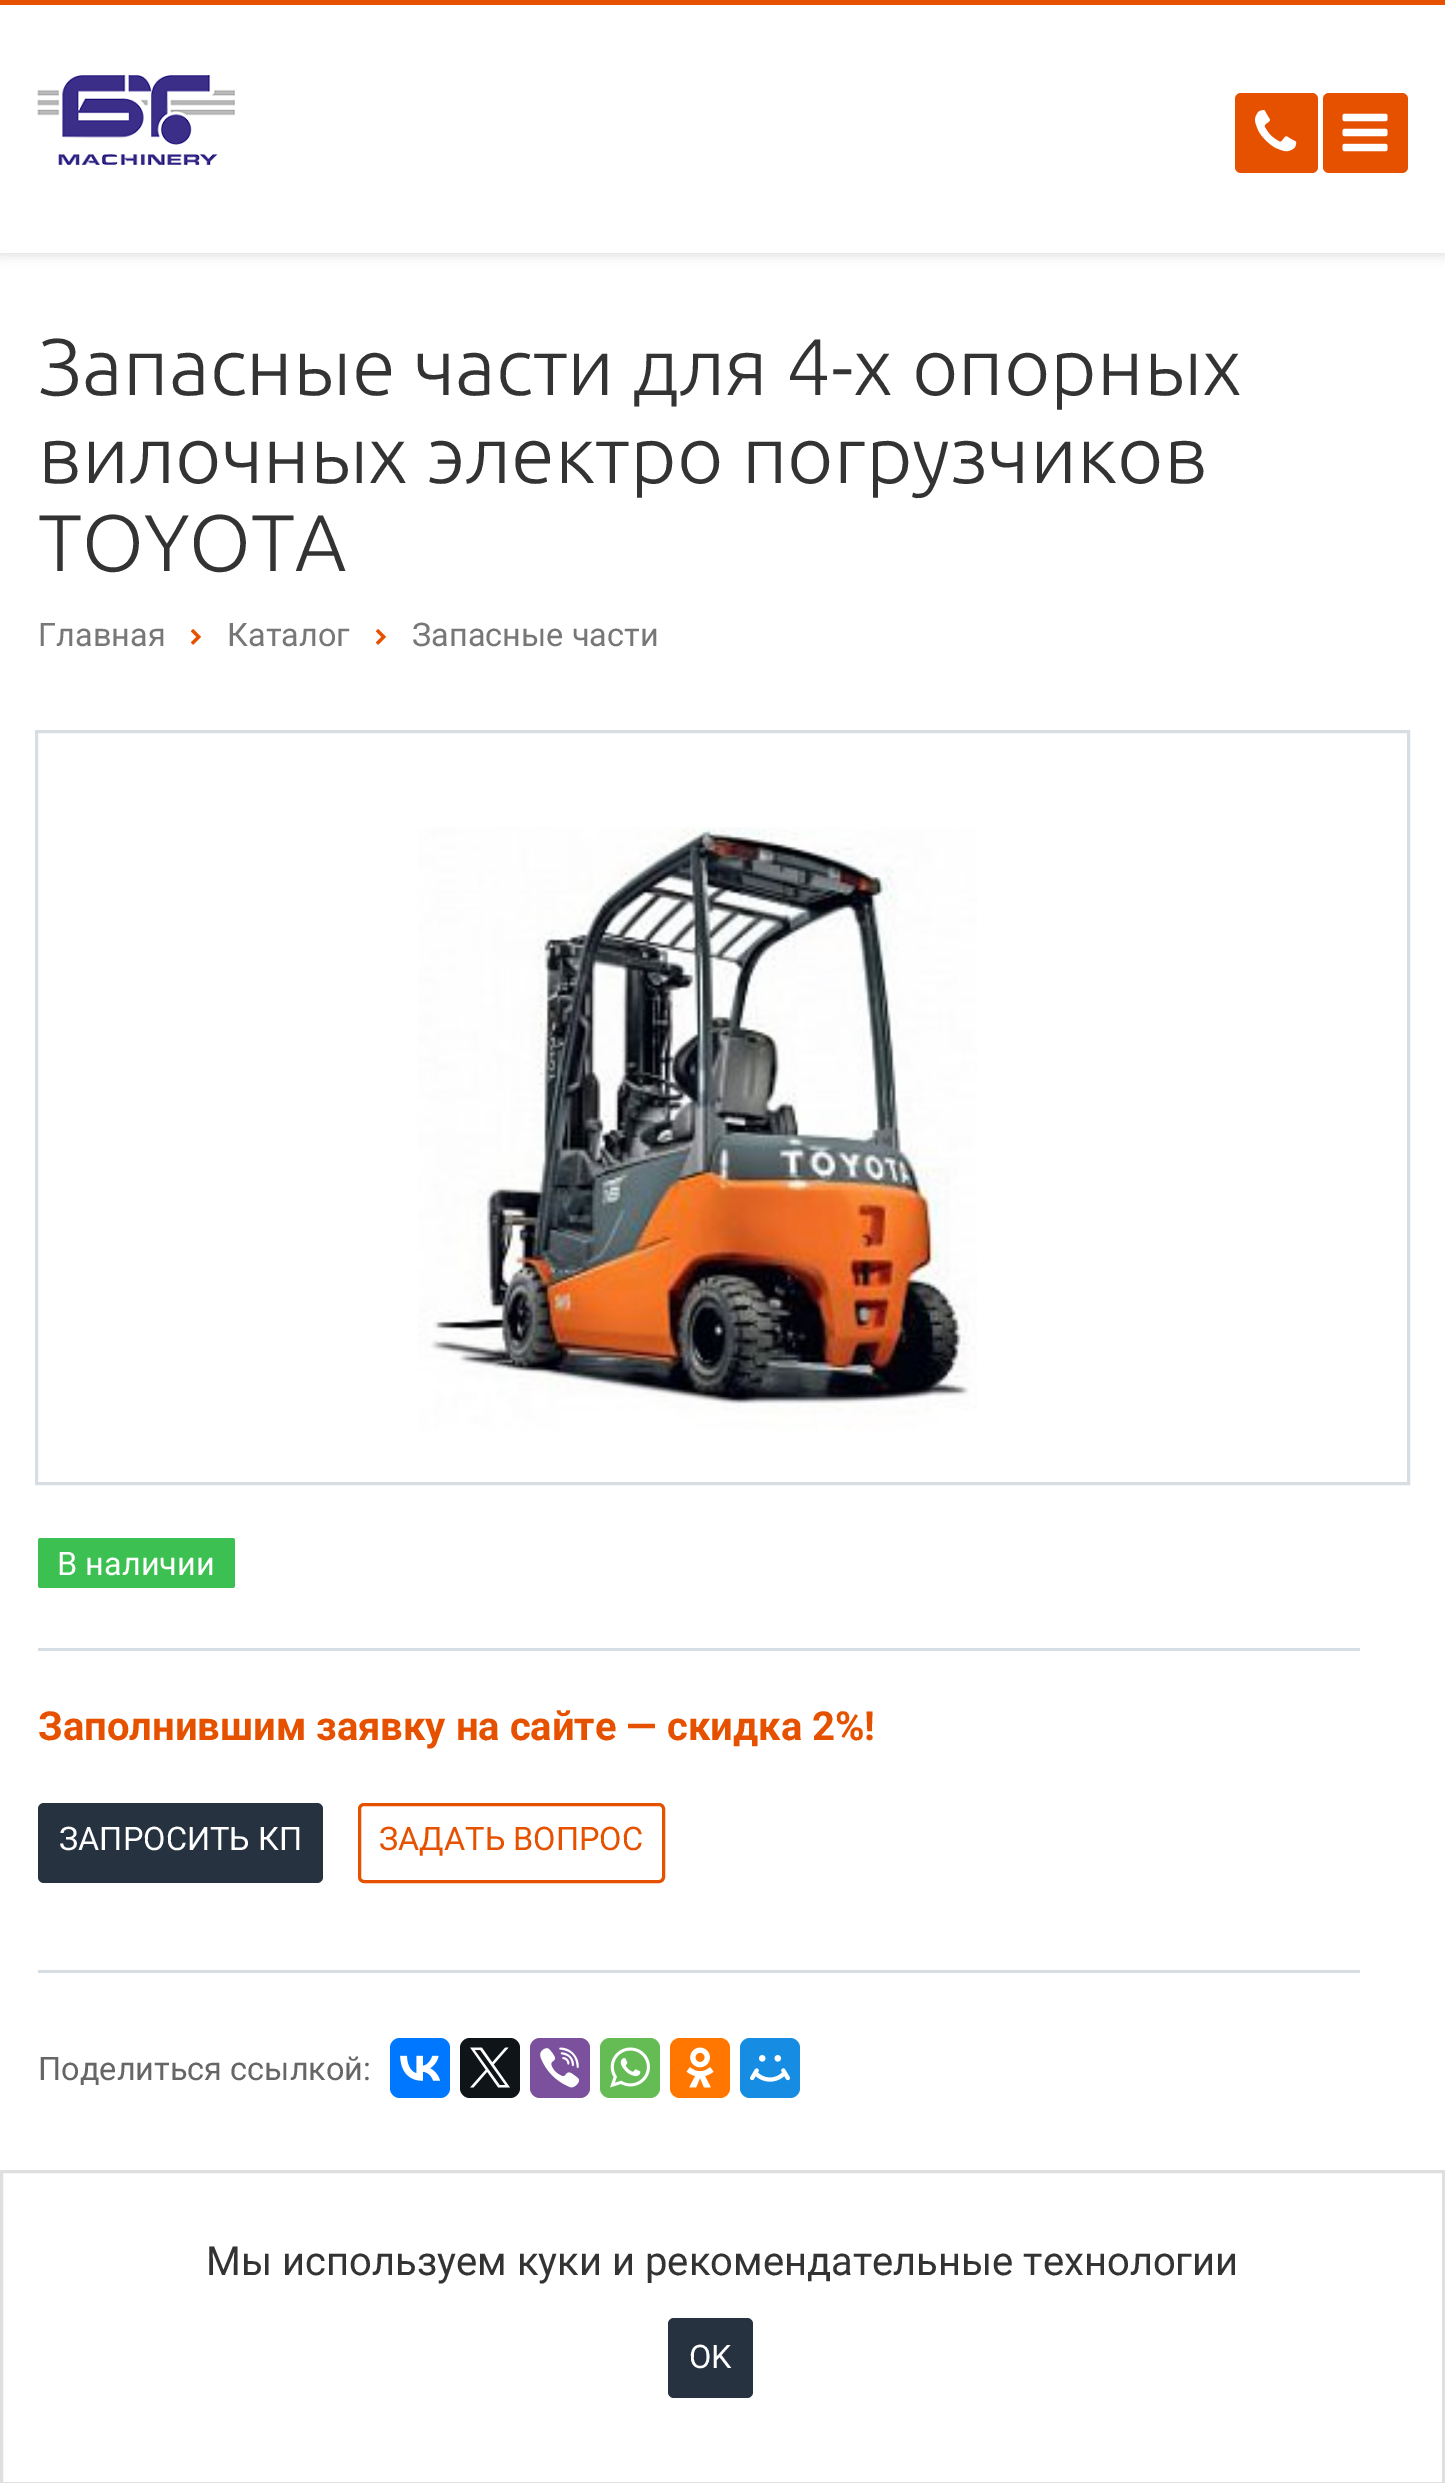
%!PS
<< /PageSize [1445 2483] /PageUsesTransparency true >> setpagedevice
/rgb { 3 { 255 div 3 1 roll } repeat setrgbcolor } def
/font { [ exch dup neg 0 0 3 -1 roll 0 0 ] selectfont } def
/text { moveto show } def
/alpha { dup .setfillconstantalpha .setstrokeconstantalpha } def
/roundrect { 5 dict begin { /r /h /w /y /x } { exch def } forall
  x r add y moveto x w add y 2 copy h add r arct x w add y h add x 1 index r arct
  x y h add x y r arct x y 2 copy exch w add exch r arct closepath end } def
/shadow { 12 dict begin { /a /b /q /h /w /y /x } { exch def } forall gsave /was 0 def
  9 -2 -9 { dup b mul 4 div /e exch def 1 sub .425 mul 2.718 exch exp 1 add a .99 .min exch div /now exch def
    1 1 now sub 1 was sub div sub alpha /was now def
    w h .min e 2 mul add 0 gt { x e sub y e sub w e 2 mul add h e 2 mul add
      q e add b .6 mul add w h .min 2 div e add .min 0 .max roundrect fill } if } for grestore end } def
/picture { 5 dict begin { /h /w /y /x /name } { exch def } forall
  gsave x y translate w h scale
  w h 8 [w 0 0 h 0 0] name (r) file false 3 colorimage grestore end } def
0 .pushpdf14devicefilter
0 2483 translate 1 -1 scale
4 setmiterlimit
255 255 255 rgb
0 0 1445 2483 rectfill
gsave
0 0 moveto 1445 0 rlineto 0 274 rlineto -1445 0 rlineto closepath 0 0 moveto 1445 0 rlineto 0 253 rlineto -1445 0 rlineto closepath eoclip newpath
0 0 0 rgb
0 3 1445 252 0 6 0.14 shadow
grestore
230 81 0 rgb
0 0 1445 5 rectfill
(img_01.rgb) 37 75 198 90 picture
1235 93 83 80 6 roundrect fill
(img_02.rgb) 1255 110 42 42 picture
1323 93 85 80 6 roundrect fill
(img_03.rgb) 1342 113 46 39 picture
(img_04.rgb) 190 629 11 16 picture
(img_04.rgb) 375 629 11 16 picture
215 222 227 rgb
3 setlinewidth
36.5 731.5 1372 752 rectstroke
(img_05.rgb) 418 827 559 603 picture
60 192 81 rgb
38 1538 197 50 2.5 roundrect fill
215 222 227 rgb
38 1648 1322 3 rectfill
39 50 64 rgb
38 1803 285 80 6 roundrect fill
230 81 0 rgb
359.5 1804.5 304 77 4.5 roundrect stroke
215 222 227 rgb
38 1970 1322 3 rectfill
0 119 255 rgb
390 2038 60 60 10 roundrect fill
(img_06.rgb) 400 2055 41 26 picture
15 20 25 rgb
460 2038 60 60 10 roundrect fill
(img_07.rgb) 470 2047 40 41 picture
123 81 157 rgb
530 2038 60 60 10 roundrect fill
(img_08.rgb) 540 2047 40 41 picture
101 188 84 rgb
600 2038 60 60 10 roundrect fill
(img_09.rgb) 610 2047 40 41 picture
255 119 0 rgb
670 2038 60 60 10 roundrect fill
(img_10.rgb) 686 2047 28 41 picture
22 141 226 rgb
740 2038 60 60 10 roundrect fill
(img_11.rgb) 750 2055 40 27 picture
223 223 223 rgb
1.5 2171.5 1442 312 rectstroke
39 50 64 rgb
668 2318 85 80 6 roundrect fill
/Ubuntu-Light 80 font
51 51 51 rgb
(Запасные части для 4-х опорных) 38 395 text
(вилочных электро погрузчиков) 38 483 text
(TOYOTA) 38 571 text
/Roboto-Regular 32.5 font
119 119 119 rgb
(Главная) 38 646 text
(Каталог) 227 646 text
(Запасные части) 412 646 text
255 255 255 rgb
(В наличии) 57 1575 text
/Roboto-Bold 40 font
230 81 0 rgb
(Заполнившим заявку на сайте — скидка 2%!) 38 1740 text
/Roboto-Regular 32.5 font
255 255 255 rgb
(ЗАПРОСИТЬ КП) 59 1850 text
230 81 0 rgb
(ЗАДАТЬ ВОПРОС) 379 1850 text
102 102 102 rgb
(Поделиться ссылкой:) 38 2080 text
/Roboto-Regular 40 font
51 51 51 rgb
(Мы используем куки и рекомендательные технологии) 206 2275 text
/Roboto-Regular 32.5 font
255 255 255 rgb
(OK) 689 2368 text
.poppdf14devicefilter showpage
